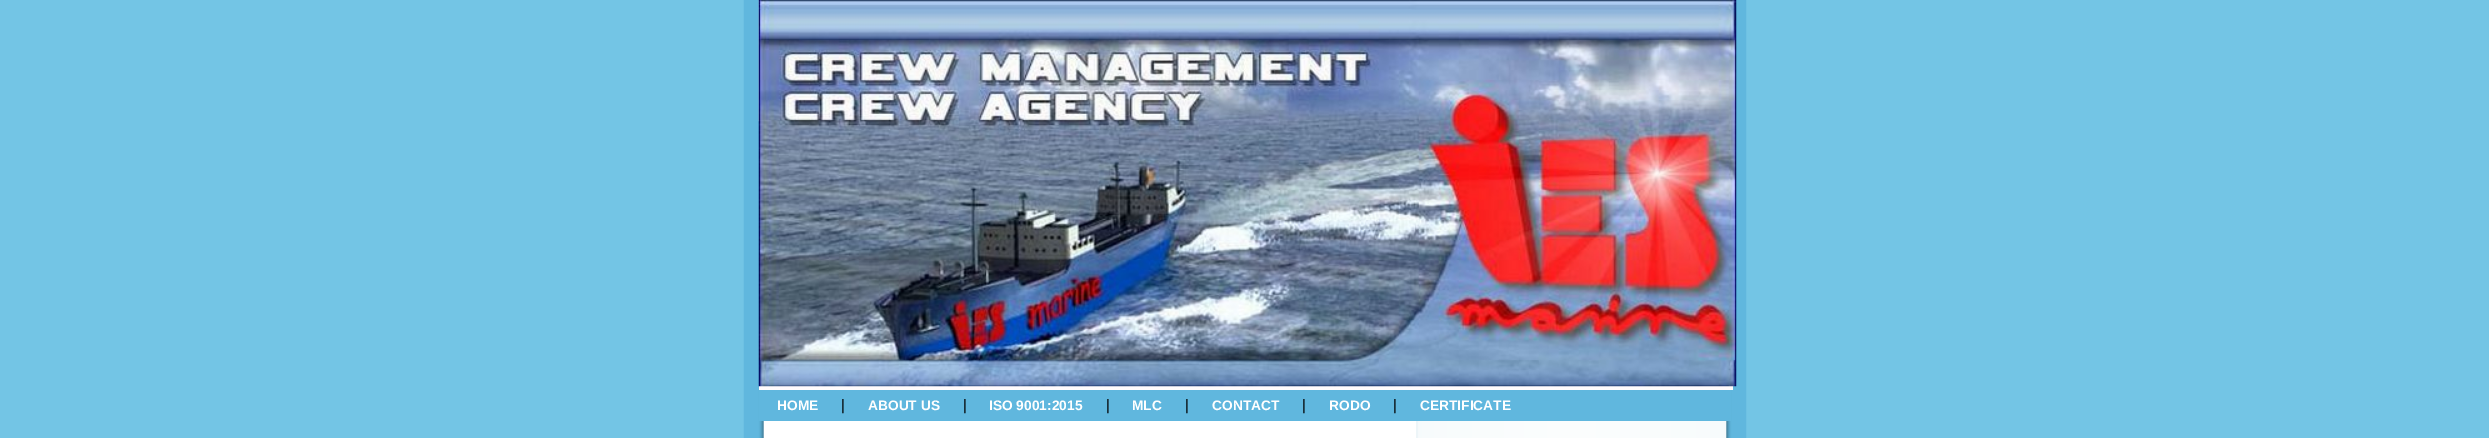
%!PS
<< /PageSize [2489 438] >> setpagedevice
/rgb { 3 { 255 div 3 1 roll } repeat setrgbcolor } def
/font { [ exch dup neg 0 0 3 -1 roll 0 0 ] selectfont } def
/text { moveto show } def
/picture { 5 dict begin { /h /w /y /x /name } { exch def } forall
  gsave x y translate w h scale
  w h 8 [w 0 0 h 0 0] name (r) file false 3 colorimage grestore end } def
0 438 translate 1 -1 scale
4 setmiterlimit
115 197 229 rgb
0 0 2489 438 rectfill
(img_01.rgb) 743 0 1004 438 picture
255 251 253 rgb
759 386 974 4 rectfill
(img_02.rgb) 758 0 1 122 picture
(img_03.rgb) 758 0 979 387 picture
96 183 222 rgb
759 390 972 31 rectfill
/LiberationSans-Bold 13.75 font
255 255 255 rgb
(HOME) 777 410 text
/LiberationSans-Regular 15 font
0 0 0 rgb
(|) 841 410 text
/LiberationSans-Bold 13.75 font
255 255 255 rgb
(ABOUT US) 868 410 text
/LiberationSans-Regular 15 font
0 0 0 rgb
(|) 963 410 text
/LiberationSans-Bold 13.75 font
255 255 255 rgb
(ISO 9001:2015) 989 410 text
/LiberationSans-Regular 15 font
0 0 0 rgb
(|) 1106 410 text
/LiberationSans-Bold 13.75 font
255 255 255 rgb
(MLC) 1132 410 text
/LiberationSans-Regular 15 font
0 0 0 rgb
(|) 1185 410 text
/LiberationSans-Bold 13.75 font
255 255 255 rgb
(CONTACT) 1212 410 text
/LiberationSans-Regular 15 font
0 0 0 rgb
(|) 1302 410 text
/LiberationSans-Bold 13.75 font
255 255 255 rgb
(RODO) 1329 410 text
/LiberationSans-Regular 15 font
0 0 0 rgb
(|) 1393 410 text
/LiberationSans-Bold 13.75 font
255 255 255 rgb
(CERTIFICATE) 1420 410 text
showpage
